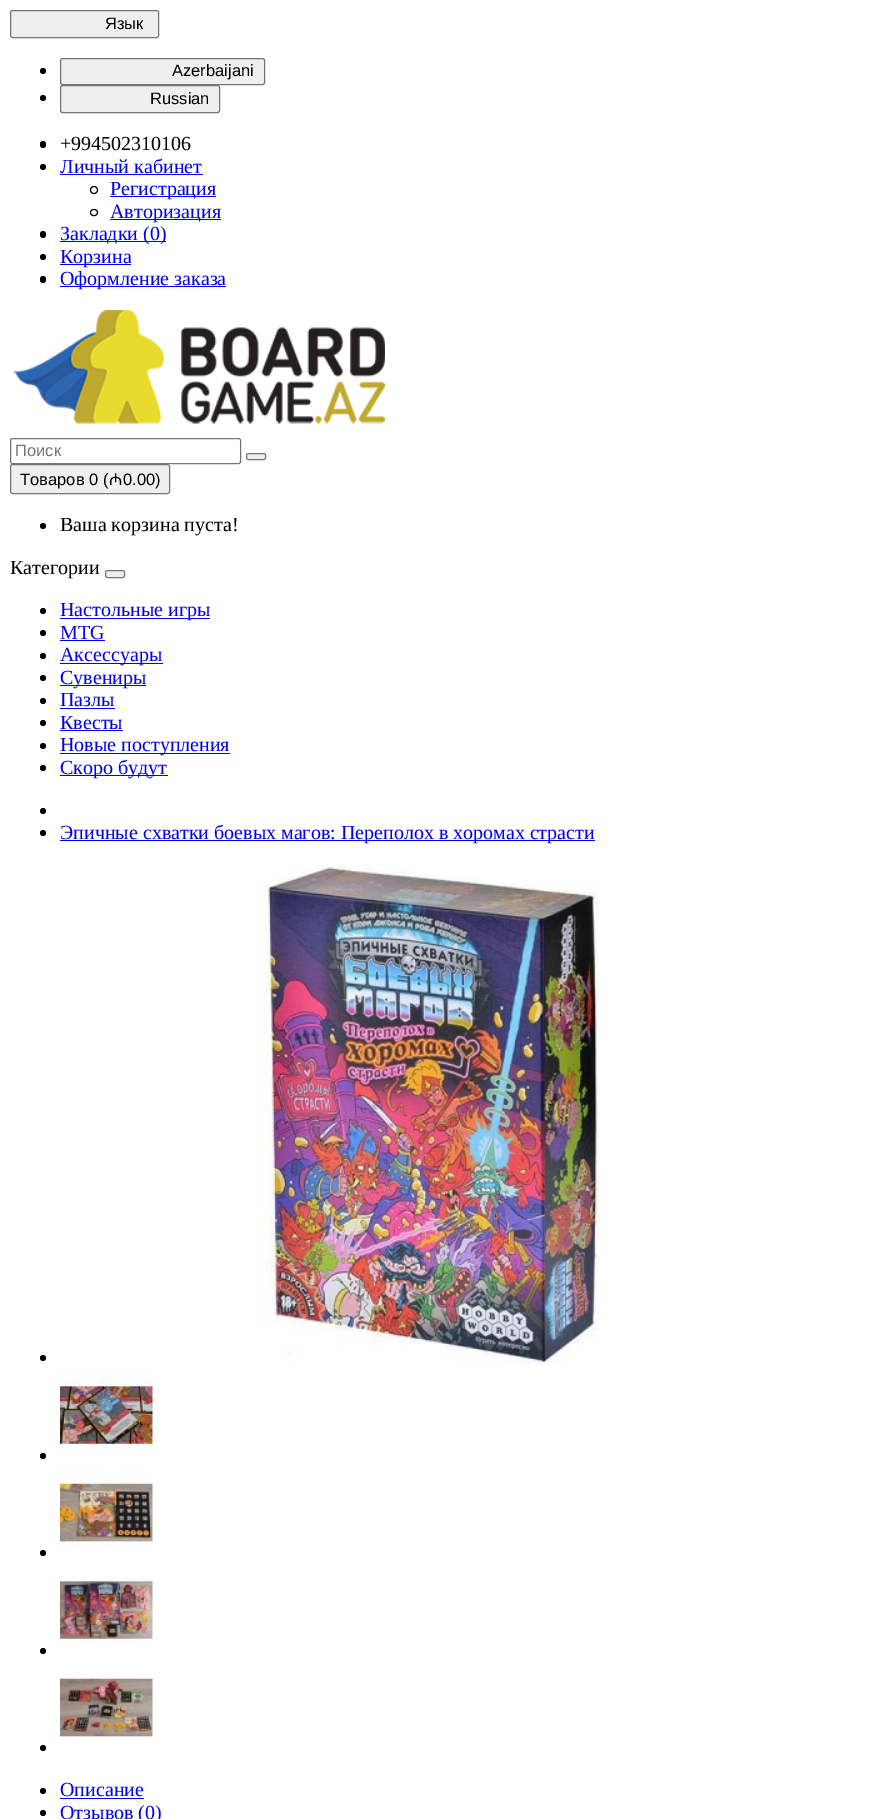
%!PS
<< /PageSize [889 1819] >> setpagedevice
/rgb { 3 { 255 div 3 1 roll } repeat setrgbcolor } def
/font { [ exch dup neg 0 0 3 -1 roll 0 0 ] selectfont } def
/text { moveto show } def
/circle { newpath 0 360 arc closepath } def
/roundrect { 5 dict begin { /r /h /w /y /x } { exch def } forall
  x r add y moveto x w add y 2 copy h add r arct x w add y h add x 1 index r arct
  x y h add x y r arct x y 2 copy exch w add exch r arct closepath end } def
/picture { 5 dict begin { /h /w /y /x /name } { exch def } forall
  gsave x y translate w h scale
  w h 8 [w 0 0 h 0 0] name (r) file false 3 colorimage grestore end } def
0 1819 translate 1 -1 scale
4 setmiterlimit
255 255 255 rgb
0 0 889 1819 rectfill
239 239 239 rgb
10.5 10.5 148 27 2 roundrect gsave fill grestore
118 118 118 rgb
stroke
0 0 0 rgb
43 71 3 circle fill
239 239 239 rgb
60.5 58.5 204 26 2 roundrect gsave fill grestore
118 118 118 rgb
stroke
0 0 0 rgb
43 98 3 circle fill
239 239 239 rgb
60.5 85.5 159 27 2 roundrect gsave fill grestore
118 118 118 rgb
stroke
0 0 0 rgb
40 141 6 7 3 roundrect fill
43 167 3 circle fill
0 0 238 rgb
60 174 143 1 rectfill
0 0 0 rgb
94 190 3.5 circle stroke
0 0 238 rgb
110 196 106 1 rectfill
0 0 0 rgb
90.5 209.5 7 6 3 roundrect stroke
0 0 238 rgb
110 219 111 1 rectfill
0 0 0 rgb
40 231 6 7 3 roundrect fill
0 0 238 rgb
60 241 106 1 rectfill
0 0 0 rgb
43 257 3 circle fill
0 0 238 rgb
60 264 71 1 rectfill
0 0 0 rgb
40 276 6 7 3 roundrect fill
0 0 238 rgb
60 286 166 1 rectfill
(img_01.rgb) 13 310 372 114 picture
118 118 118 rgb
10.5 438.5 230 25 2 roundrect stroke
239 239 239 rgb
246.5 453.5 19 6 2 roundrect gsave fill grestore
118 118 118 rgb
stroke
239 239 239 rgb
10.5 464.5 159 29 2 roundrect gsave fill grestore
118 118 118 rgb
stroke
0 0 0 rgb
43 526 3 circle fill
239 239 239 rgb
105.5 570.5 19 7 2 roundrect gsave fill grestore
118 118 118 rgb
stroke
0 0 0 rgb
43 611 3 circle fill
0 0 238 rgb
60 618 150 1 rectfill
0 0 0 rgb
43 633 3 circle fill
0 0 238 rgb
60 640 45 1 rectfill
0 0 0 rgb
43 656 3 circle fill
0 0 238 rgb
60 663 103 1 rectfill
0 0 0 rgb
43 678 3 circle fill
0 0 238 rgb
60 685 86 1 rectfill
0 0 0 rgb
43 701 3 circle fill
0 0 238 rgb
60 708 55 1 rectfill
0 0 0 rgb
43 723 3 circle fill
0 0 238 rgb
60 730 63 1 rectfill
0 0 0 rgb
43 746 3 circle fill
0 0 238 rgb
60 753 170 1 rectfill
0 0 0 rgb
43 768 3 circle fill
0 0 238 rgb
60 775 108 1 rectfill
0 0 0 rgb
43 811 3 circle fill
43 833 3 circle fill
0 0 238 rgb
60 840 535 1 rectfill
0 0 0 rgb
43 1358 3 circle fill
(img_02.rgb) 259 864 341 500 picture
(img_03.rgb) 60 1369 93 80 picture
43 1456 3 circle fill
(img_04.rgb) 60 1466 93 81 picture
43 1553 3 circle fill
(img_05.rgb) 60 1579 93 65 picture
43 1651 3 circle fill
(img_06.rgb) 60 1675 93 66 picture
43 1748 3 circle fill
43 1791 3 circle fill
0 0 238 rgb
60 1798 84 1 rectfill
0 0 0 rgb
43 1813 3 circle fill
/LiberationSans-Regular 16.5 font
(Язык) 105 29 text
(Azerbaijani) 172 76 text
(Russian) 150 104 text
/LiberationSerif-Regular 20 font
(+994502310106) 60 150 text
0 0 238 rgb
(Личный кабинет) 60 173 text
(Регистрация) 110 195 text
(Авторизация) 110 218 text
(Закладки \(0\)) 60 240 text
(Корзина) 60 263 text
(Оформление заказа) 60 285 text
/LiberationSans-Regular 16.5 font
117 117 117 rgb
(Поиск) 15 456 text
0 0 0 rgb
(Товаров 0 \() 20 485 text
/NotoSans-Regular 16.5 font
(₼) 109 485 text
/LiberationSans-Regular 16.5 font
(0.00\)) 123 485 text
/LiberationSerif-Regular 20 font
(Ваша корзина пуста!) 60 531 text
(Категории) 10 574 text
0 0 238 rgb
(Настольные игры) 60 616 text
(MTG) 60 639 text
(Аксессуары) 60 661 text
(Сувениры) 60 684 text
(Пазлы) 60 706 text
(Квесты) 60 729 text
(Новые поступления) 60 751 text
(Скоро будут) 60 774 text
(Эпичные схватки боевых магов: Переполох в хоромах страсти) 60 839 text
(Описание) 60 1796 text
(Отзывов \(0\)) 60 1819 text
showpage
